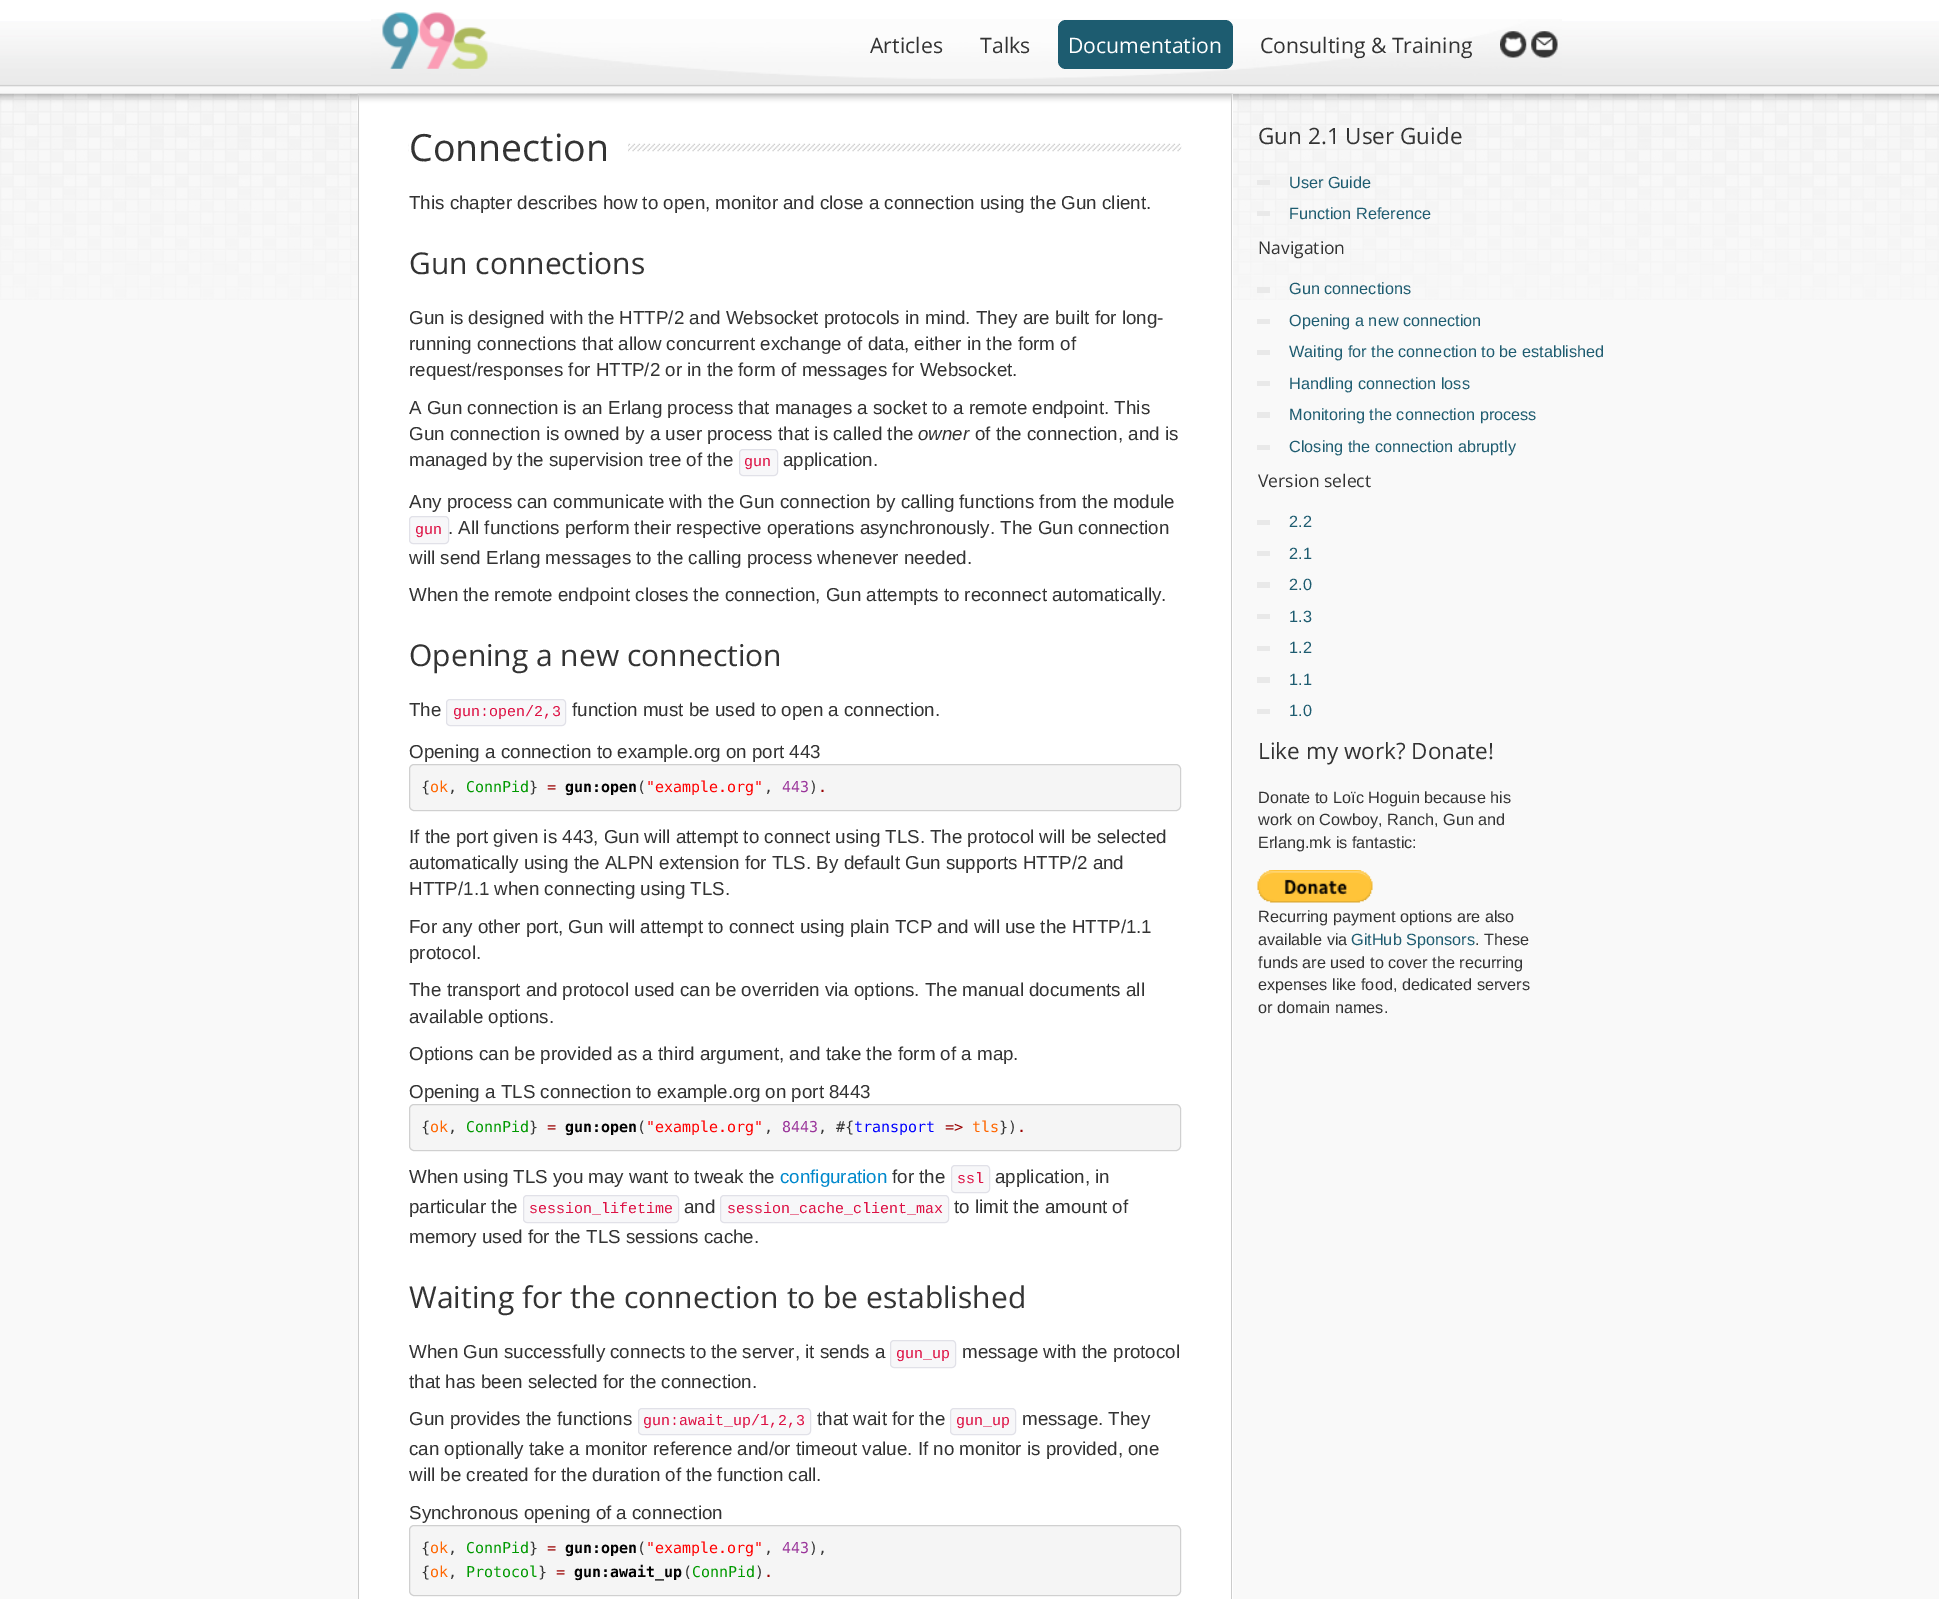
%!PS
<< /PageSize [1939 1599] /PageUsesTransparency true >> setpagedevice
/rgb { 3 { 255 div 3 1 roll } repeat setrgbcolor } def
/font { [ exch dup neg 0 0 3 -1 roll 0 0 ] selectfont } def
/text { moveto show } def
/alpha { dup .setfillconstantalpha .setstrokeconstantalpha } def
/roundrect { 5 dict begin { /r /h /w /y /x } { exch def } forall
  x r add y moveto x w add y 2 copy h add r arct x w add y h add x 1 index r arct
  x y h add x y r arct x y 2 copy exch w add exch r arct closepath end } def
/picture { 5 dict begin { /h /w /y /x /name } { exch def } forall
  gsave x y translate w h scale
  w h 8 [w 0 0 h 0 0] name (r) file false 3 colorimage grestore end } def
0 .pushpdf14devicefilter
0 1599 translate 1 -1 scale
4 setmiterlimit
255 255 255 rgb
0 0 1939 1599 rectfill
(img_01.rgb) 0 21 1939 73 picture
(img_02.rgb) 371 19 1191 60 picture
(img_03.rgb) 382 12 106 57 picture
29 92 112 rgb
1058 20 175 49 8 roundrect fill
(img_04.rgb) 1500 31 27 27 picture
(img_05.rgb) 1531 31 27 27 picture
249 249 249 rgb
0 300 1939 1299 rectfill
(img_06.rgb) 0 93 1939 207 picture
255 255 255 rgb
359 94 874 1505 rectfill
(img_07.rgb) 357 93 876 28 picture
204 204 204 rgb
1231 94 1 1505 rectfill
358 94 1 1505 rectfill
(img_08.rgb) 408 143 774 9 picture
255 255 255 rgb
409 143 219 9 rectfill
247 247 249 rgb
739.5 449.5 38 26 3.5 roundrect gsave fill grestore
225 225 232 rgb
stroke
247 247 249 rgb
409.5 516.5 39 27 3.5 roundrect gsave fill grestore
225 225 232 rgb
stroke
247 247 249 rgb
446.5 699.5 119 26 3.5 roundrect gsave fill grestore
225 225 232 rgb
stroke
245 245 245 rgb
409 764 772 47 5 roundrect fill
0.15 alpha
0 0 0 rgb
409.5 764.5 771 46 4.5 roundrect stroke
1 alpha
245 245 245 rgb
409 1104 772 47 5 roundrect fill
0.15 alpha
0 0 0 rgb
409.5 1104.5 771 46 4.5 roundrect stroke
1 alpha
247 247 249 rgb
951.5 1165.5 38 27 3.5 roundrect gsave fill grestore
225 225 232 rgb
stroke
247 247 249 rgb
523.5 1195.5 155 27 3.5 roundrect gsave fill grestore
225 225 232 rgb
stroke
247 247 249 rgb
720.5 1195.5 228 27 3.5 roundrect gsave fill grestore
225 225 232 rgb
stroke
247 247 249 rgb
890.5 1340.5 65 27 3.5 roundrect gsave fill grestore
225 225 232 rgb
stroke
247 247 249 rgb
638.5 1408.5 172 26 3.5 roundrect gsave fill grestore
225 225 232 rgb
stroke
247 247 249 rgb
950.5 1408.5 65 26 3.5 roundrect gsave fill grestore
225 225 232 rgb
stroke
245 245 245 rgb
409 1525 772 71 5 roundrect fill
0.15 alpha
0 0 0 rgb
409.5 1525.5 771 70 4.5 roundrect stroke
1 alpha
233 233 233 rgb
1257 180 13 5 rectfill
1257 211 13 5 rectfill
1257 287 13 6 rectfill
1257 319 13 5 rectfill
1257 350 13 5 rectfill
1257 381 13 5 rectfill
1257 412 13 6 rectfill
1257 445 13 5 rectfill
1257 520 13 5 rectfill
1257 551 13 5 rectfill
1257 582 13 6 rectfill
1257 614 13 5 rectfill
1257 646 13 5 rectfill
1257 677 13 6 rectfill
1257 709 13 5 rectfill
(img_09.rgb) 1257 870 116 33 picture
/OpenSans-Regular 21.25 font
51 51 51 rgb
(Articles) 870 53 text
(Talks) 980 53 text
255 255 255 rgb
(Documentation) 1068 53 text
51 51 51 rgb
(Consulting & Training) 1260 53 text
/OpenSans-Regular 37.5 font
(Connection) 409 161 text
/LiberationSans-Regular 18.75 font
(This chapter describes how to open, monitor and close a connection using the Gun client.) 409 209 text
/OpenSans-Regular 30 font
(Gun connections) 409 274 text
/LiberationSans-Regular 18.75 font
(Gun is designed with the HTTP/2 and Websocket protocols in mind. They are built for long-) 409 324 text
(running connections that allow concurrent exchange of data, either in the form of) 409 350 text
(request/responses for HTTP/2 or in the form of messages for Websocket.) 409 376 text
(A Gun connection is an Erlang process that manages a socket to a remote endpoint. This) 409 414 text
(Gun connection is owned by a user process that is called the) 409 440 text
/LiberationSans-Italic 18.75 font
(owner) 918 440 text
/LiberationSans-Regular 18.75 font
(of the connection, and is) 975 440 text
(managed by the supervision tree of the) 409 466 text
/LiberationMono-Regular 15 font
221 17 68 rgb
(gun) 744 466 text
/LiberationSans-Regular 18.75 font
51 51 51 rgb
(application.) 783 466 text
(Any process can communicate with the Gun connection by calling functions from the module) 409 508 text
/LiberationMono-Regular 15 font
221 17 68 rgb
(gun) 415 534 text
/LiberationSans-Regular 18.75 font
51 51 51 rgb
(. All functions perform their respective operations asynchronously. The Gun connection) 448 534 text
(will send Erlang messages to the calling process whenever needed.) 409 564 text
(When the remote endpoint closes the connection, Gun attempts to reconnect automatically.) 409 601 text
/OpenSans-Regular 30 font
(Opening a new connection) 409 666 text
/LiberationSans-Regular 18.75 font
(The) 409 716 text
/LiberationMono-Regular 15 font
221 17 68 rgb
(gun:open/2,3) 453 716 text
/LiberationSans-Regular 18.75 font
51 51 51 rgb
(function must be used to open a connection.) 572 716 text
(Opening a connection to example.org on port 443) 409 758 text
/DejaVuSansMono-Regular 15 font
({) 421 792 text
255 102 0 rgb
(ok) 430 792 text
0 153 0 rgb
(ConnPid) 466 792 text
51 51 51 rgb
(}) 529 792 text
153 0 0 rgb
(=) 547 792 text
/DejaVuSansMono-Bold 15 font
0 0 0 rgb
(gun:open) 565 792 text
/DejaVuSansMono-Regular 15 font
51 51 51 rgb
(\() 637 792 text
255 0 0 rgb
("example.org") 646 792 text
153 51 153 rgb
(443) 782 792 text
51 51 51 rgb
(\)) 809 792 text
(,) 448 792 text
(,) 764 792 text
153 0 0 rgb
(.) 818 792 text
/LiberationSans-Regular 18.75 font
51 51 51 rgb
(If the port given is 443, Gun will attempt to connect using TLS. The protocol will be selected) 409 843 text
(automatically using the ALPN extension for TLS. By default Gun supports HTTP/2 and) 409 869 text
(HTTP/1.1 when connecting using TLS.) 409 895 text
(For any other port, Gun will attempt to connect using plain TCP and will use the HTTP/1.1) 409 933 text
(protocol.) 409 959 text
(The transport and protocol used can be overriden via options. The manual documents all) 409 996 text
(available options.) 409 1023 text
(Options can be provided as a third argument, and take the form of a map.) 409 1060 text
(Opening a TLS connection to example.org on port 8443) 409 1098 text
/DejaVuSansMono-Regular 15 font
({) 421 1132 text
255 102 0 rgb
(ok) 430 1132 text
0 153 0 rgb
(ConnPid) 466 1132 text
51 51 51 rgb
(}) 529 1132 text
153 0 0 rgb
(=) 547 1132 text
/DejaVuSansMono-Bold 15 font
0 0 0 rgb
(gun:open) 565 1132 text
/DejaVuSansMono-Regular 15 font
51 51 51 rgb
(\() 637 1132 text
255 0 0 rgb
("example.org") 646 1132 text
153 51 153 rgb
(8443) 782 1132 text
51 51 51 rgb
(, #{) 818 1132 text
0 0 255 rgb
(transport) 854 1132 text
153 0 0 rgb
(=>) 945 1132 text
255 102 0 rgb
(tls) 972 1132 text
51 51 51 rgb
(}\)) 999 1132 text
(,) 448 1132 text
(,) 764 1132 text
153 0 0 rgb
(.) 1017 1132 text
/LiberationSans-Regular 18.75 font
51 51 51 rgb
(When using TLS you may want to tweak the) 409 1183 text
0 136 204 rgb
(configuration) 780 1183 text
51 51 51 rgb
(for the) 892 1183 text
/LiberationMono-Regular 15 font
221 17 68 rgb
(ssl) 957 1183 text
/LiberationSans-Regular 18.75 font
51 51 51 rgb
(application, in) 995 1183 text
(particular the) 409 1213 text
/LiberationMono-Regular 15 font
221 17 68 rgb
(session_lifetime) 529 1213 text
/LiberationSans-Regular 18.75 font
51 51 51 rgb
(and) 684 1213 text
/LiberationMono-Regular 15 font
221 17 68 rgb
(session_cache_client_max) 727 1213 text
/LiberationSans-Regular 18.75 font
51 51 51 rgb
(to limit the amount of) 954 1213 text
(memory used for the TLS sessions cache.) 409 1243 text
/OpenSans-Regular 30 font
(Waiting for the connection to be established) 409 1308 text
/LiberationSans-Regular 18.75 font
(When Gun successfully connects to the server, it sends a) 409 1358 text
/LiberationMono-Regular 15 font
221 17 68 rgb
(gun_up) 896 1358 text
/LiberationSans-Regular 18.75 font
51 51 51 rgb
(message with the protocol) 962 1358 text
(that has been selected for the connection.) 409 1388 text
(Gun provides the functions) 409 1425 text
/LiberationMono-Regular 15 font
221 17 68 rgb
(gun:await_up/1,2,3) 643 1425 text
/LiberationSans-Regular 18.75 font
51 51 51 rgb
(that wait for the) 817 1425 text
/LiberationMono-Regular 15 font
221 17 68 rgb
(gun_up) 956 1425 text
/LiberationSans-Regular 18.75 font
51 51 51 rgb
(message. They) 1022 1425 text
(can optionally take a monitor reference and/or timeout value. If no monitor is provided, one) 409 1455 text
(will be created for the duration of the function call.) 409 1481 text
(Synchronous opening of a connection) 409 1519 text
/DejaVuSansMono-Regular 15 font
({) 421 1553 text
255 102 0 rgb
(ok) 430 1553 text
0 153 0 rgb
(ConnPid) 466 1553 text
51 51 51 rgb
(}) 529 1553 text
153 0 0 rgb
(=) 547 1553 text
/DejaVuSansMono-Bold 15 font
0 0 0 rgb
(gun:open) 565 1553 text
/DejaVuSansMono-Regular 15 font
51 51 51 rgb
(\() 637 1553 text
255 0 0 rgb
("example.org") 646 1553 text
153 51 153 rgb
(443) 782 1553 text
51 51 51 rgb
(\),) 809 1553 text
(,) 448 1553 text
(,) 764 1553 text
({) 421 1577 text
255 102 0 rgb
(ok) 430 1577 text
0 153 0 rgb
(Protocol) 466 1577 text
51 51 51 rgb
(}) 538 1577 text
153 0 0 rgb
(=) 556 1577 text
/DejaVuSansMono-Bold 15 font
0 0 0 rgb
(gun:await_up) 574 1577 text
/DejaVuSansMono-Regular 15 font
51 51 51 rgb
(\() 683 1577 text
0 153 0 rgb
(ConnPid) 692 1577 text
51 51 51 rgb
(\)) 755 1577 text
(,) 448 1577 text
153 0 0 rgb
(.) 764 1577 text
/OpenSans-Regular 22.5 font
51 51 51 rgb
(Gun 2.1 User Guide) 1258 144 text
/LiberationSans-Regular 16.25 font
30 92 112 rgb
(User Guide) 1289 188 text
(Function Reference) 1289 219 text
/OpenSans-Regular 17.5 font
51 51 51 rgb
(Navigation) 1258 254 text
/LiberationSans-Regular 16.25 font
30 92 112 rgb
(Gun connections) 1289 294 text
(Opening a new connection) 1289 326 text
(Waiting for the connection to be established) 1289 357 text
(Handling connection loss) 1289 389 text
(Monitoring the connection process) 1289 420 text
(Closing the connection abruptly) 1289 452 text
/OpenSans-Regular 17.5 font
51 51 51 rgb
(Version select) 1258 487 text
/LiberationSans-Regular 16.25 font
30 92 112 rgb
(2.2) 1289 527 text
(2.1) 1289 559 text
(2.0) 1289 590 text
(1.3) 1289 622 text
(1.2) 1289 653 text
(1.1) 1289 685 text
(1.0) 1289 716 text
/OpenSans-Regular 22.5 font
51 51 51 rgb
(Like my work? Donate!) 1258 759 text
/LiberationSans-Regular 16.25 font
(Donate to Loïc Hoguin because his) 1258 803 text
(work on Cowboy, Ranch, Gun and) 1258 825 text
(Erlang.mk is fantastic:) 1258 848 text
(Recurring payment options are also) 1258 922 text
(available via) 1258 945 text
30 92 112 rgb
(GitHub Sponsors) 1351 945 text
51 51 51 rgb
(. These) 1475 945 text
(funds are used to cover the recurring) 1258 968 text
(expenses like food, dedicated servers) 1258 990 text
(or domain names.) 1258 1013 text
.poppdf14devicefilter showpage
